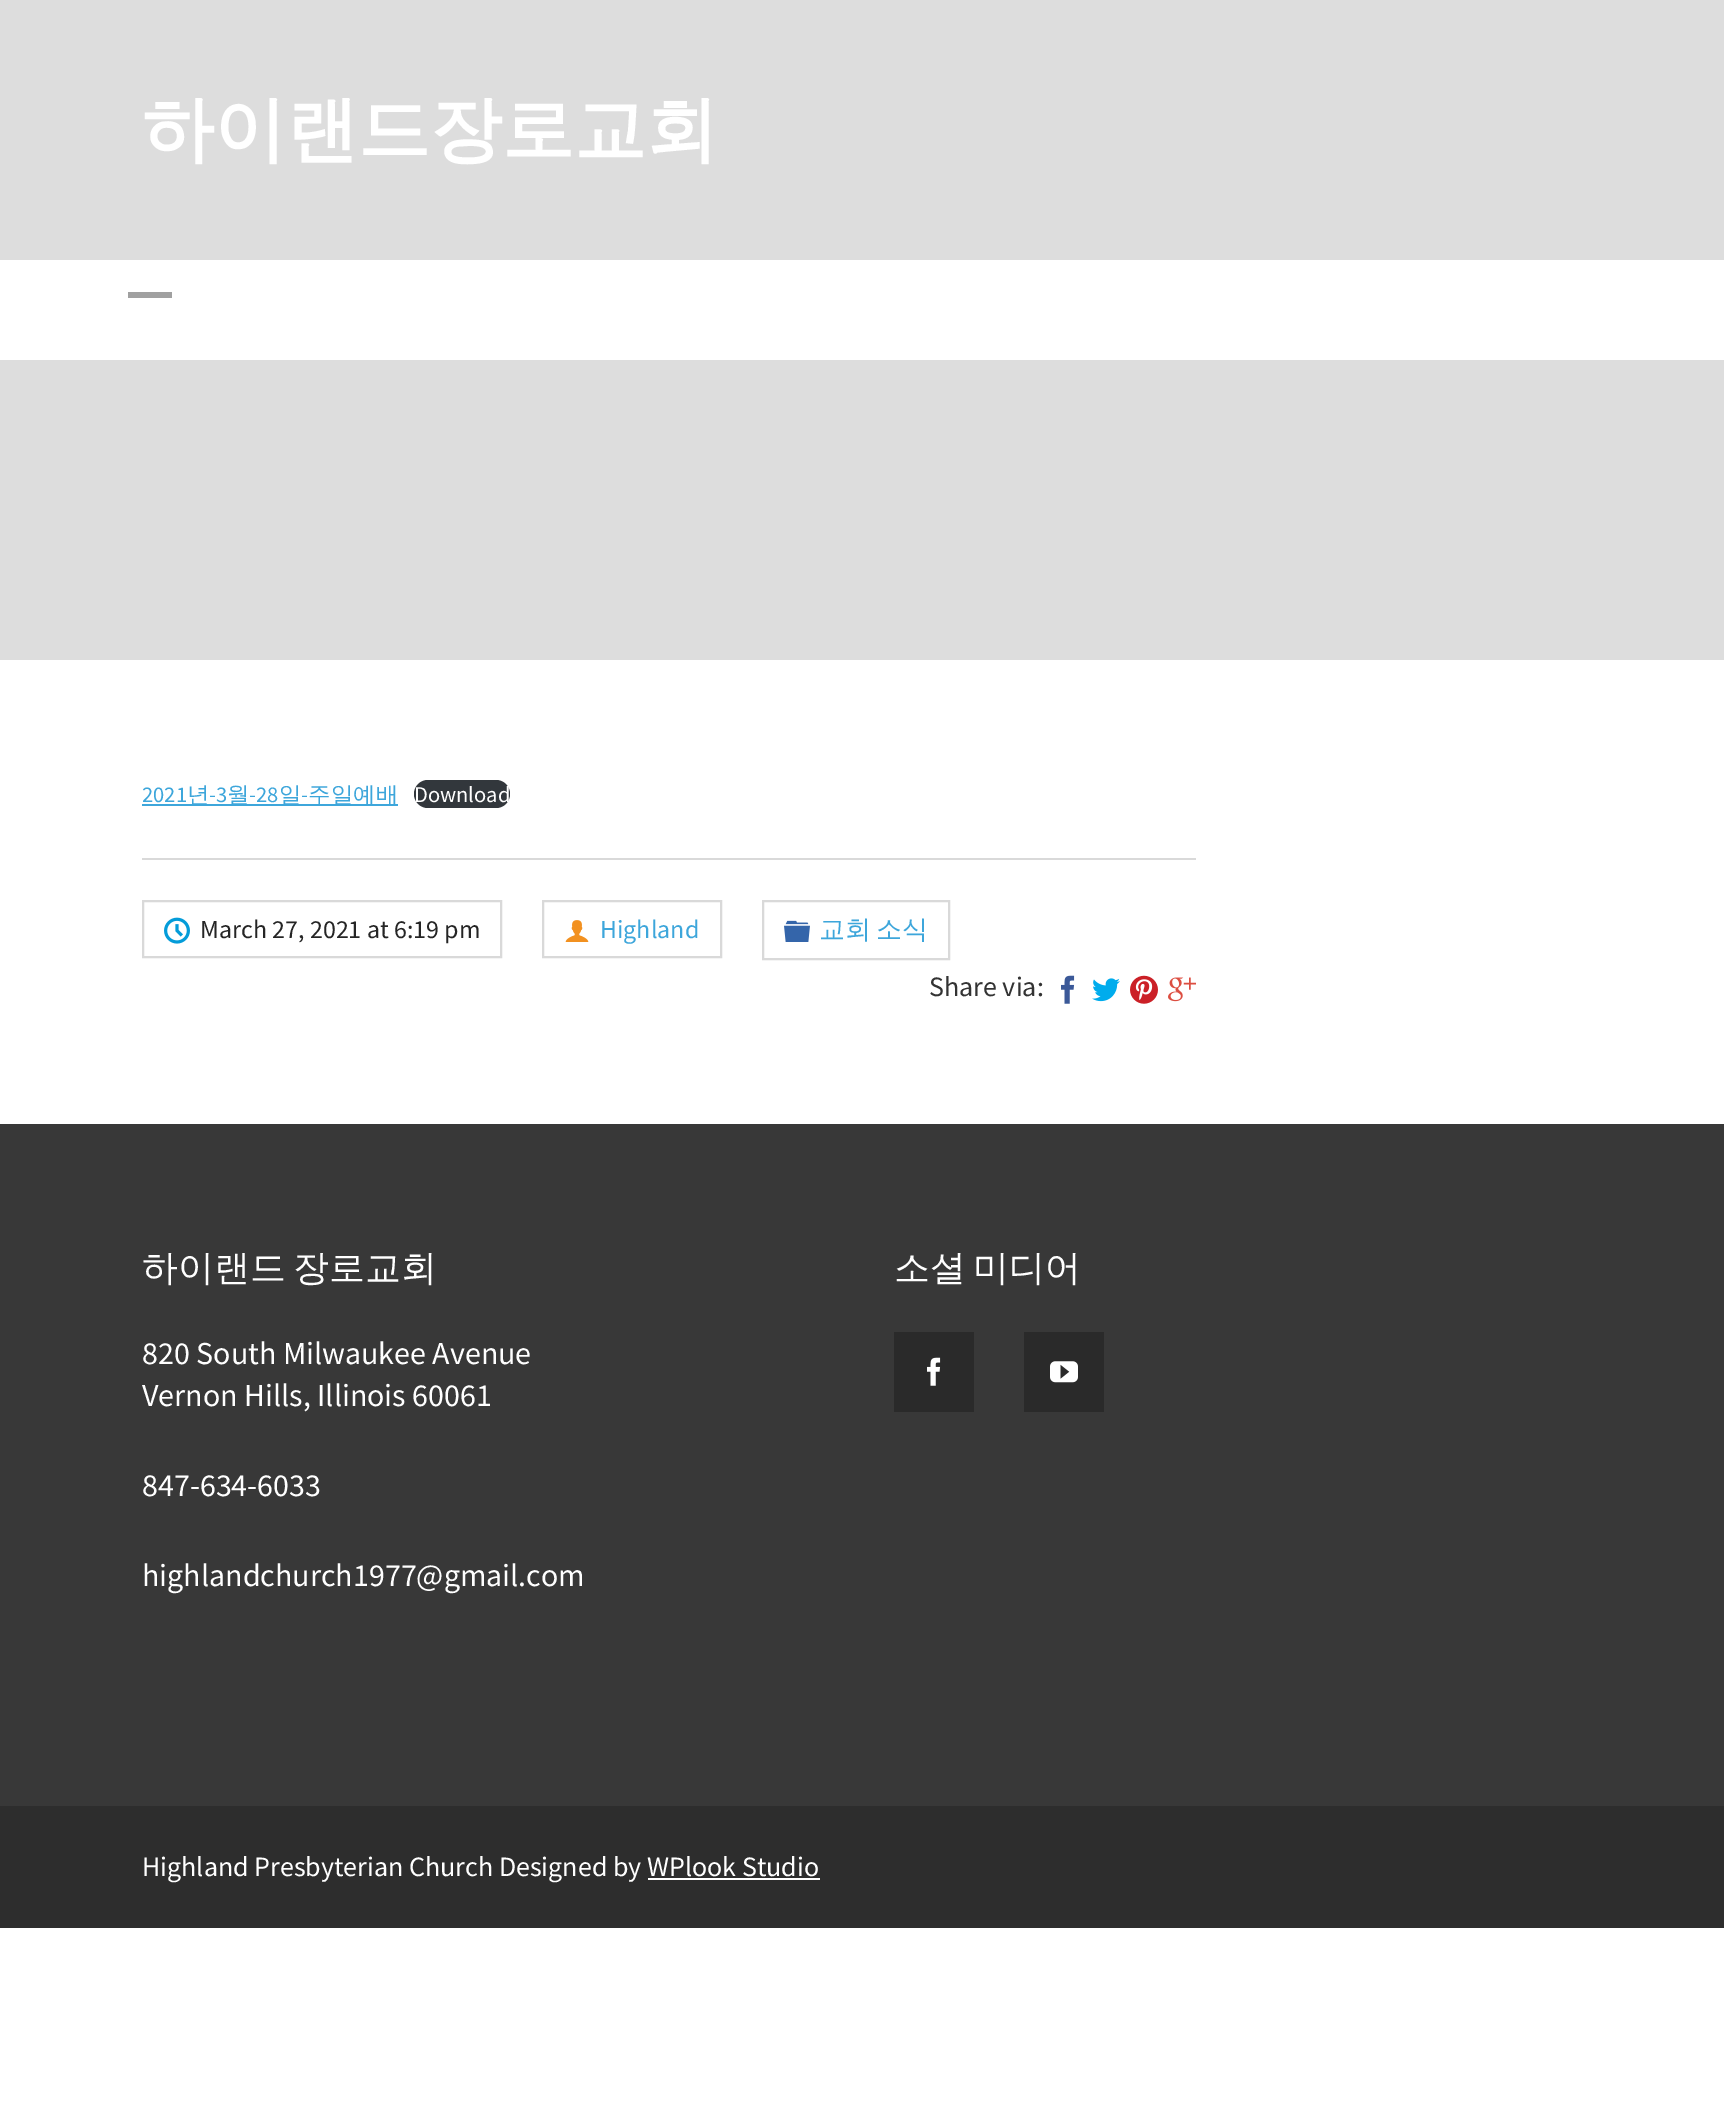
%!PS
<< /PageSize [1724 2126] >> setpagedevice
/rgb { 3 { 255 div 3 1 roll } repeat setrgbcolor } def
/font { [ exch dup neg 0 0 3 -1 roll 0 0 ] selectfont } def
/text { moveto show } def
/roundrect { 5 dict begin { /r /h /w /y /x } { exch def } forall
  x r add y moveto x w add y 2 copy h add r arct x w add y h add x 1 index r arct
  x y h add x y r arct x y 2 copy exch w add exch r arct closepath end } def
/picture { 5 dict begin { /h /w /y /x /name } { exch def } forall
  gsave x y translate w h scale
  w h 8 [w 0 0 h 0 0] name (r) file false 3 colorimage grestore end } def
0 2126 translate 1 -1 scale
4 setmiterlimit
255 255 255 rgb
0 0 1724 2126 rectfill
221 221 221 rgb
0 0 1724 660 rectfill
255 255 255 rgb
0 260 1724 100 rectfill
160 160 160 rgb
128 292 44 6 rectfill
50 55 60 rgb
414 780 96 28 14 roundrect fill
61 166 219 rgb
142 804 256 2 rectfill
217 217 217 rgb
142 858 1054 2 rectfill
2 setlinewidth
143 901 358 56 rectstroke
(img_01.rgb) 164 917 26 27 picture
543 901 178 56 rectstroke
(img_02.rgb) 565 920 24 22 picture
763 901 186 58 rectstroke
(img_03.rgb) 784 920 26 22 picture
(img_04.rgb) 1061 975 14 29 picture
(img_05.rgb) 1092 978 28 24 picture
(img_06.rgb) 1130 975 28 29 picture
(img_07.rgb) 1168 977 28 25 picture
56 56 56 rgb
0 1124 1724 682 rectfill
42 42 42 rgb
894 1332 80 80 rectfill
(img_08.rgb) 927 1357 14 29 picture
1024 1332 80 80 rectfill
(img_09.rgb) 1050 1361 28 22 picture
45 45 45 rgb
0 1806 1724 122 rectfill
255 255 255 rgb
648 1878 172 2 rectfill
/WenQuanYiZenHei-Bold 72 font
(하이랜드장로교회) 142 154 text
/SourceSansPro-Regular 22.5 font
61 166 219 rgb
(2021) 142 802 text
/WenQuanYiZenHei-Medium 22.5 font
(년) 187 802 text
/SourceSansPro-Regular 22.5 font
(-3) 209 802 text
/WenQuanYiZenHei-Medium 22.5 font
(월) 227 802 text
/SourceSansPro-Regular 22.5 font
(-28) 249 802 text
/WenQuanYiZenHei-Medium 22.5 font
(일 주일예배) 279 802 text
/SourceSansPro-Regular 22.5 font
255 255 255 rgb
(Download) 414 802 text
61 166 219 rgb
(-) 301 802 text
/SourceSansPro-Regular 26 font
37 37 37 rgb
(March 27, 2021 at 6:19 pm) 200 938 text
61 166 219 rgb
(Highland) 600 938 text
/WenQuanYiZenHei-Medium 26 font
819 938 moveto -3 0 32 (교회 소식) widthshow
/SourceSansPro-Regular 28 font
51 51 51 rgb
(Share via:) 929 996 text
/WenQuanYiZenHei-Medium 36 font
255 255 255 rgb
142 1280 moveto -4 0 32 (하이랜드 장로교회) widthshow
/SourceSansPro-Regular 32 font
(820 South Milwaukee Avenue) 142 1364 text
(Vernon Hills, Illinois 60061) 142 1406 text
(847-634-6033) 142 1496 text
(highlandchurch1977@gmail.com) 142 1586 text
/WenQuanYiZenHei-Medium 36 font
894 1280 moveto -4 0 32 (소셜 미디어) widthshow
/SourceSansPro-Regular 28 font
(Highland Presbyterian Church Designed by WPlook Studio) 142 1876 text
showpage
